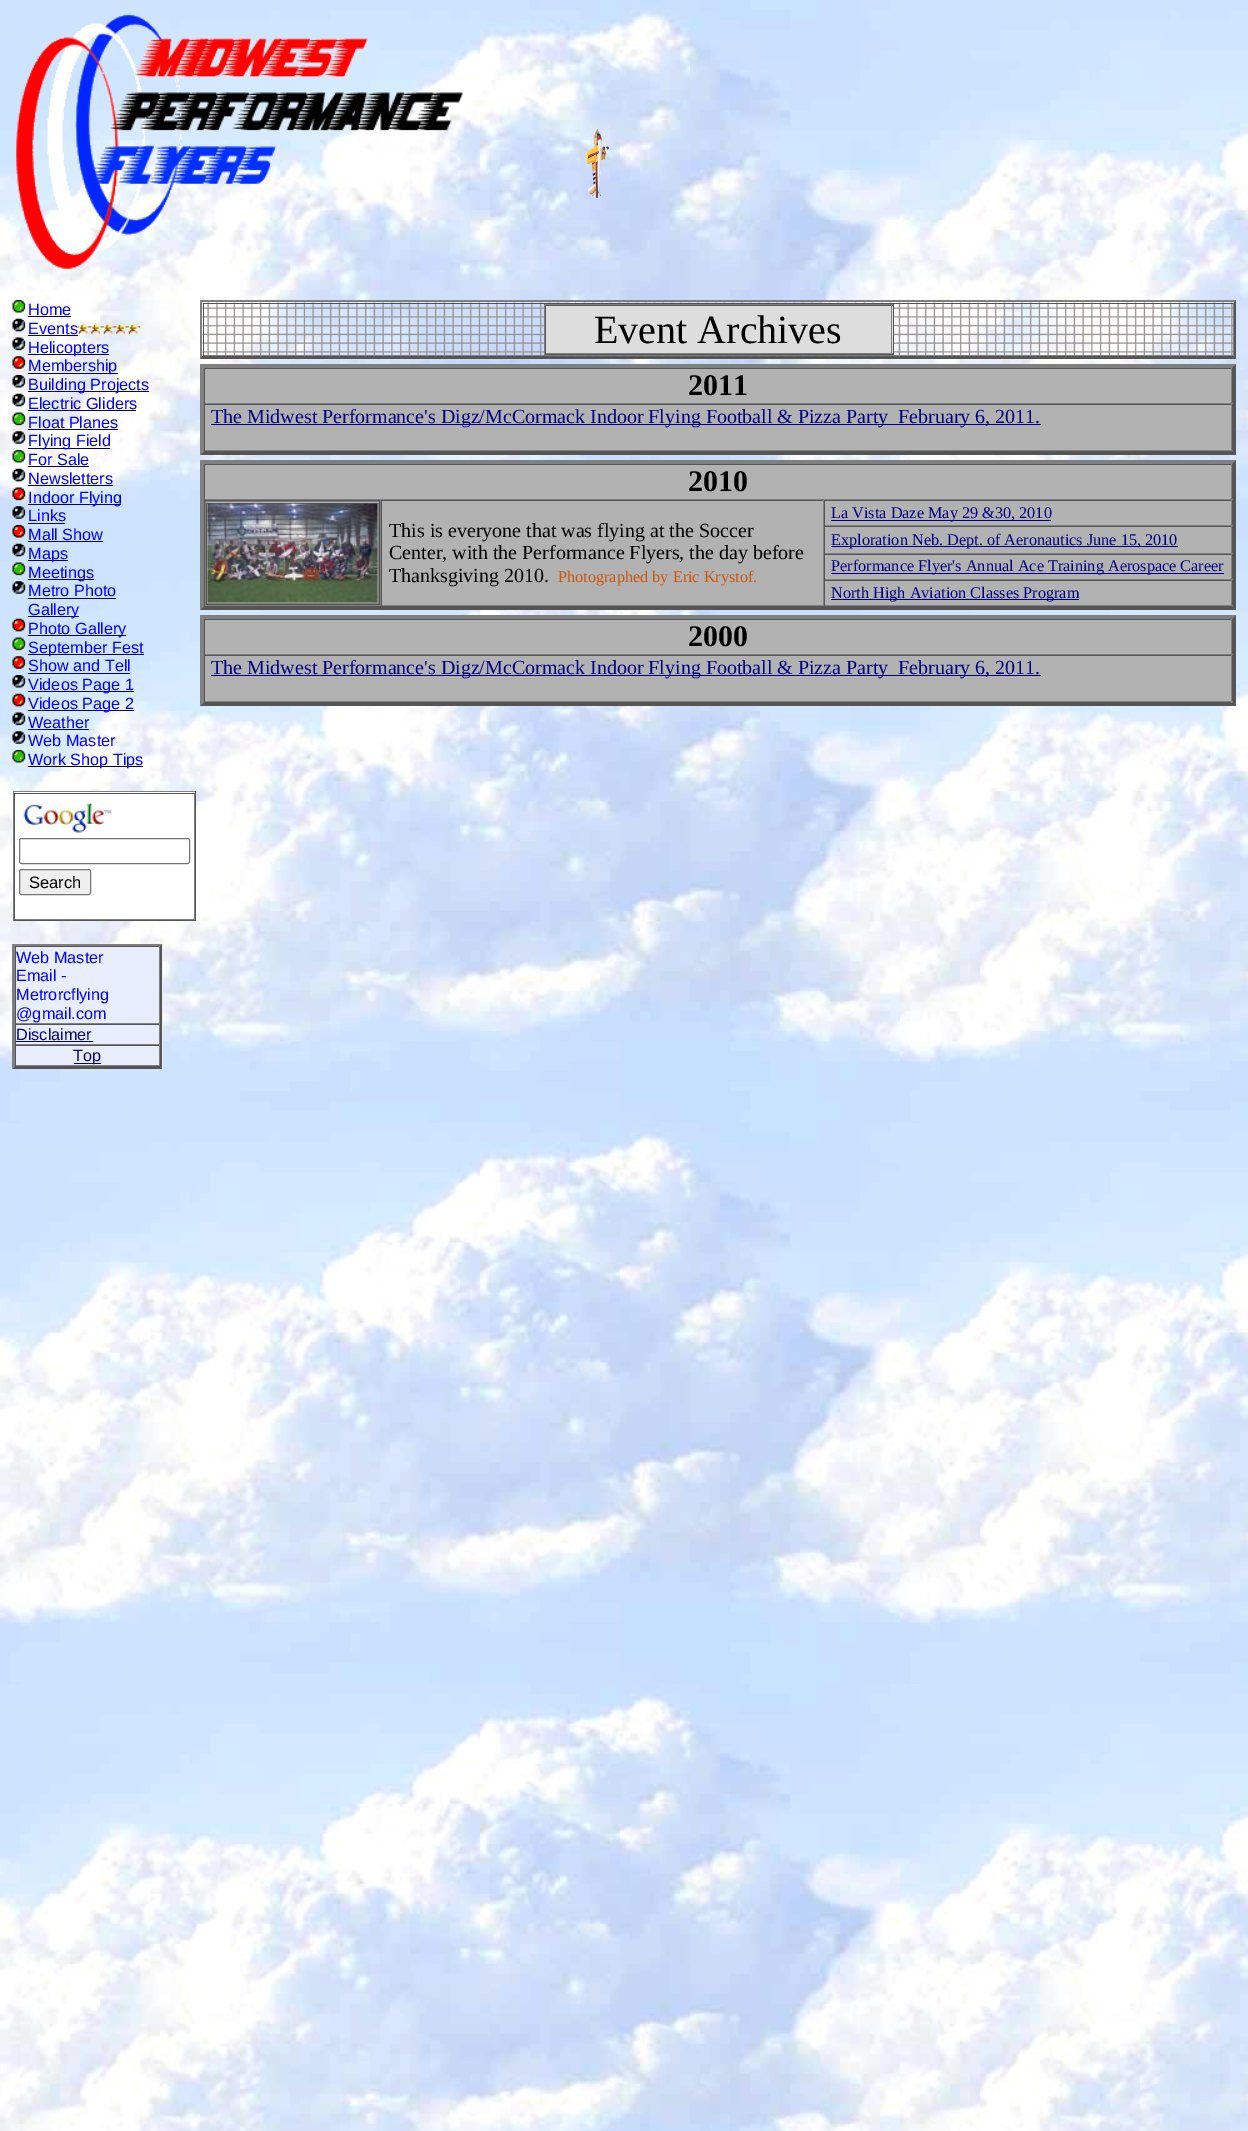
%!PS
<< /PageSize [1248 2131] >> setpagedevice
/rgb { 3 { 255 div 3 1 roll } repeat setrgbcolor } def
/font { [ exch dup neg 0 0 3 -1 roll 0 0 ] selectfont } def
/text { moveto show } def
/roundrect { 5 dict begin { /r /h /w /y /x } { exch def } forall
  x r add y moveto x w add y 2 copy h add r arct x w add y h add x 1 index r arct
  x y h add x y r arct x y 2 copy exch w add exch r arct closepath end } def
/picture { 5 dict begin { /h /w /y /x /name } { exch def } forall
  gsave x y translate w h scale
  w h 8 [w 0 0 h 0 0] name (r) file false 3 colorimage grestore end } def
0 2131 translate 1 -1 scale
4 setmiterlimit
255 255 255 rgb
0 0 1248 2131 rectfill
(img_01.rgb) 0 0 1248 2131 picture
(img_02.rgb) 16 14 447 255 picture
(img_03.rgb) 585 128 24 71 picture
(img_04.rgb) 12 300 14 13 picture
0 0 128 rgb
28 316 43 1 rectfill
(img_05.rgb) 12 318 14 14 picture
28 335 50 1 rectfill
(img_06.rgb) 77 322 13 12 picture
(img_07.rgb) 90 322 13 12 picture
(img_08.rgb) 102 322 13 12 picture
(img_09.rgb) 115 322 13 12 picture
(img_10.rgb) 127 322 13 12 picture
(img_11.rgb) 12 337 14 14 picture
28 354 81 1 rectfill
(img_12.rgb) 12 356 14 13 picture
28 373 90 1 rectfill
(img_13.rgb) 12 375 14 13 picture
28 391 121 1 rectfill
(img_14.rgb) 12 393 14 14 picture
28 410 108 1 rectfill
(img_15.rgb) 12 412 14 14 picture
28 429 90 1 rectfill
(img_16.rgb) 12 431 14 13 picture
28 448 82 1 rectfill
(img_17.rgb) 12 450 14 13 picture
28 466 61 1 rectfill
(img_18.rgb) 12 468 14 14 picture
28 485 85 1 rectfill
(img_19.rgb) 12 487 14 14 picture
28 504 93 1 rectfill
(img_20.rgb) 12 506 14 13 picture
28 523 37 1 rectfill
(img_21.rgb) 12 525 14 13 picture
28 541 75 1 rectfill
(img_22.rgb) 12 543 14 15 picture
28 560 40 1 rectfill
(img_23.rgb) 12 562 14 14 picture
28 579 66 1 rectfill
(img_24.rgb) 12 581 14 13 picture
28 598 88 1 rectfill
28 616 51 1 rectfill
(img_25.rgb) 12 618 14 14 picture
28 635 98 1 rectfill
(img_26.rgb) 12 637 14 14 picture
28 654 116 1 rectfill
(img_27.rgb) 12 656 14 13 picture
28 673 102 1 rectfill
(img_28.rgb) 12 675 14 13 picture
28 691 106 1 rectfill
(img_29.rgb) 12 693 14 14 picture
28 710 106 1 rectfill
(img_30.rgb) 12 712 14 15 picture
28 729 61 1 rectfill
(img_31.rgb) 12 731 14 14 picture
(img_32.rgb) 12 750 14 13 picture
0 0 0 rgb
28 766 115 1 rectfill
255 255 255 rgb
14 792 181 127 rectfill
128 128 128 rgb
13 791 183 1 rectfill
85 85 85 rgb
195 791 1 130 rectfill
13 920 183 1 rectfill
128 128 128 rgb
13 791 1 130 rectfill
85 85 85 rgb
14 793 181 1 rectfill
128 128 128 rgb
194 793 1 127 rectfill
14 919 181 1 rectfill
85 85 85 rgb
14 793 1 127 rectfill
(img_33.rgb) 23 803 89 30 picture
118 118 118 rgb
19.5 838.5 170 25 2 roundrect stroke
239 239 239 rgb
19.5 869.5 71 25 2 roundrect gsave fill grestore
118 118 118 rgb
stroke
232 238 254 rgb
13 944 150 125 rectfill
128 128 128 rgb
12 944 moveto 150 0 rlineto -2 2 rlineto -145 0 rlineto closepath fill
85 85 85 rgb
162 944 moveto 0 125 rlineto -2 -3 rlineto 0 -120 rlineto closepath fill
162 1069 moveto -150 0 rlineto 3 -3 rlineto 145 0 rlineto closepath fill
128 128 128 rgb
12 1069 moveto 0 -125 rlineto 3 2 rlineto 0 120 rlineto closepath fill
85 85 85 rgb
15 946 145 1 rectfill
128 128 128 rgb
159 946 1 78 rectfill
15 1023 145 1 rectfill
85 85 85 rgb
15 946 1 78 rectfill
15 1024 145 1 rectfill
128 128 128 rgb
159 1024 1 21 rectfill
15 1044 145 1 rectfill
85 85 85 rgb
15 1024 1 21 rectfill
0 0 128 rgb
16 1041 77 1 rectfill
85 85 85 rgb
15 1045 145 1 rectfill
128 128 128 rgb
159 1045 1 21 rectfill
15 1065 145 1 rectfill
85 85 85 rgb
15 1045 1 21 rectfill
0 0 128 rgb
74 1063 27 1 rectfill
128 128 128 rgb
200 300 moveto 1036 0 rlineto -2 2 rlineto -1032 0 rlineto closepath fill
85 85 85 rgb
1236 300 moveto 0 59 rlineto -2 -3 rlineto 0 -54 rlineto closepath fill
1236 359 moveto -1036 0 rlineto 2 -3 rlineto 1032 0 rlineto closepath fill
128 128 128 rgb
200 359 moveto 0 -59 rlineto 2 2 rlineto 0 54 rlineto closepath fill
(img_34.rgb) 202 302 1031 55 picture
85 85 85 rgb
203 303 1031 1 rectfill
128 128 128 rgb
1233 303 1 53 rectfill
203 355 1031 1 rectfill
85 85 85 rgb
203 303 1 53 rectfill
221 221 221 rgb
546 306 347 47 rectfill
128 128 128 rgb
544 304 350 1 rectfill
85 85 85 rgb
893 304 1 51 rectfill
544 354 350 1 rectfill
128 128 128 rgb
544 304 1 51 rectfill
85 85 85 rgb
545 305 348 1 rectfill
128 128 128 rgb
891 305 1 49 rectfill
545 353 348 1 rectfill
85 85 85 rgb
545 305 1 49 rectfill
178 178 178 rgb
200 364 1036 91 rectfill
128 128 128 rgb
200 364 moveto 1036 0 rlineto -4 4 rlineto -1028 0 rlineto closepath fill
85 85 85 rgb
1236 364 moveto 0 91 rlineto -4 -4 rlineto 0 -83 rlineto closepath fill
1236 455 moveto -1036 0 rlineto 4 -4 rlineto 1028 0 rlineto closepath fill
128 128 128 rgb
200 455 moveto 0 -91 rlineto 4 4 rlineto 0 83 rlineto closepath fill
85 85 85 rgb
204 368 1029 1 rectfill
128 128 128 rgb
1231 368 1 36 rectfill
204 403 1029 1 rectfill
85 85 85 rgb
204 368 1 36 rectfill
204 404 1029 1 rectfill
128 128 128 rgb
1231 404 1 47 rectfill
204 450 1029 1 rectfill
85 85 85 rgb
204 404 1 47 rectfill
0 0 128 rgb
211 424 830 1 rectfill
178 178 178 rgb
200 460 1036 150 rectfill
128 128 128 rgb
200 460 moveto 1036 0 rlineto -4 4 rlineto -1028 0 rlineto closepath fill
85 85 85 rgb
1236 460 moveto 0 150 rlineto -4 -4 rlineto 0 -142 rlineto closepath fill
1236 610 moveto -1036 0 rlineto 4 -4 rlineto 1028 0 rlineto closepath fill
128 128 128 rgb
200 610 moveto 0 -150 rlineto 4 4 rlineto 0 142 rlineto closepath fill
85 85 85 rgb
204 464 1029 1 rectfill
128 128 128 rgb
1231 464 1 36 rectfill
204 499 1029 1 rectfill
85 85 85 rgb
204 464 1 36 rectfill
204 500 1029 1 rectfill
128 128 128 rgb
380 500 1 106 rectfill
204 605 177 1 rectfill
85 85 85 rgb
204 500 1 106 rectfill
128 128 128 rgb
205 501 175 1 rectfill
85 85 85 rgb
379 501 1 104 rectfill
205 604 175 1 rectfill
128 128 128 rgb
205 501 1 104 rectfill
85 85 85 rgb
206 503 173 1 rectfill
128 128 128 rgb
378 503 1 101 rectfill
206 603 173 1 rectfill
85 85 85 rgb
206 503 1 101 rectfill
(img_35.rgb) 207 503 171 100 picture
128 128 128 rgb
1231 500 1 26 rectfill
824 525 409 1 rectfill
85 85 85 rgb
824 500 1 26 rectfill
0 0 128 rgb
831 520 220 1 rectfill
128 128 128 rgb
823 500 1 106 rectfill
381 605 443 1 rectfill
85 85 85 rgb
381 500 1 106 rectfill
824 526 409 1 rectfill
128 128 128 rgb
1231 526 1 28 rectfill
824 553 409 1 rectfill
85 85 85 rgb
824 526 1 28 rectfill
0 0 128 rgb
831 546 347 1 rectfill
85 85 85 rgb
824 554 409 1 rectfill
128 128 128 rgb
1231 554 1 26 rectfill
824 579 409 1 rectfill
85 85 85 rgb
824 554 1 26 rectfill
0 0 128 rgb
831 573 393 1 rectfill
85 85 85 rgb
824 580 409 1 rectfill
128 128 128 rgb
1231 580 1 26 rectfill
824 605 409 1 rectfill
85 85 85 rgb
824 580 1 26 rectfill
0 0 128 rgb
831 599 248 1 rectfill
178 178 178 rgb
200 615 1036 91 rectfill
128 128 128 rgb
200 615 moveto 1036 0 rlineto -4 4 rlineto -1028 0 rlineto closepath fill
85 85 85 rgb
1236 615 moveto 0 91 rlineto -4 -4 rlineto 0 -83 rlineto closepath fill
1236 706 moveto -1036 0 rlineto 4 -4 rlineto 1028 0 rlineto closepath fill
128 128 128 rgb
200 706 moveto 0 -91 rlineto 4 4 rlineto 0 83 rlineto closepath fill
85 85 85 rgb
204 619 1029 1 rectfill
128 128 128 rgb
1231 619 1 36 rectfill
204 654 1029 1 rectfill
85 85 85 rgb
204 619 1 36 rectfill
204 655 1029 1 rectfill
128 128 128 rgb
1231 655 1 48 rectfill
204 701 1029 1 rectfill
85 85 85 rgb
204 655 1 48 rectfill
0 0 128 rgb
211 675 830 1 rectfill
/LiberationSans-Regular 16.25 font
0 0 255 rgb
(Home) 28 315 text
(Events) 28 334 text
(Helicopters) 28 353 text
(Membership) 28 371 text
(Building Projects) 28 390 text
(Electric Gliders) 28 409 text
(Float Planes) 28 428 text
(Flying Field) 28 446 text
(For Sale) 28 465 text
(Newsletters) 28 484 text
(Indoor Flying) 28 503 text
(Links) 28 521 text
(Mall Show) 28 540 text
(Maps) 28 559 text
(Meetings) 28 578 text
(Metro Photo) 28 596 text
(Gallery) 28 615 text
(Photo Gallery) 28 634 text
(September Fest) 28 653 text
(Show and Tell) 28 671 text
(Videos Page 1) 28 690 text
(Videos Page 2) 28 709 text
(Weather) 28 728 text
(Web Master) 28 746 text
(Work Shop Tips) 28 765 text
/LiberationSans-Regular 16.5 font
0 0 0 rgb
(Search) 29 888 text
/LiberationSans-Regular 16.25 font
0 0 255 rgb
(Web Master) 16 963 text
(Email -) 16 981 text
(Metrorcflying) 16 1000 text
(@gmail.com) 16 1019 text
0 0 128 rgb
(Disclaimer) 16 1040 text
(Top) 73 1061 text
/LiberationSerif-Regular 40 font
0 0 0 rgb
(Event Archives) 594 343 text
/LiberationSerif-Bold 30 font
(2011) 688 395 text
/LiberationSerif-Regular 20 font
0 0 128 rgb
(The Midwest Performance's Digz/McCormack Indoor Flying Football & Pizza Party  February 6, 2011.) 211 423 text
/LiberationSerif-Bold 30 font
0 0 0 rgb
(2010) 688 491 text
/LiberationSerif-Regular 16.25 font
0 0 128 rgb
(La Vista Daze May 29 &30, 2010) 831 518 text
/LiberationSerif-Regular 20 font
0 0 0 rgb
(This is everyone that was flying at the Soccer) 389 537 text
(Center, with the Performance Flyers, the day before) 389 559 text
(Thanksgiving 2010.) 389 582 text
/LiberationSerif-Regular 16.25 font
206 86 6 rgb
(Photographed by Eric Krystof.) 558 582 text
0 0 128 rgb
(Exploration Neb. Dept. of Aeronautics June 15, 2010) 831 545 text
(Performance Flyer's Annual Ace Training Aerospace Career) 831 571 text
(North High Aviation Classes Program) 831 598 text
/LiberationSerif-Bold 30 font
0 0 0 rgb
(2000) 688 646 text
/LiberationSerif-Regular 20 font
0 0 128 rgb
(The Midwest Performance's Digz/McCormack Indoor Flying Football & Pizza Party  February 6, 2011.) 211 674 text
showpage
